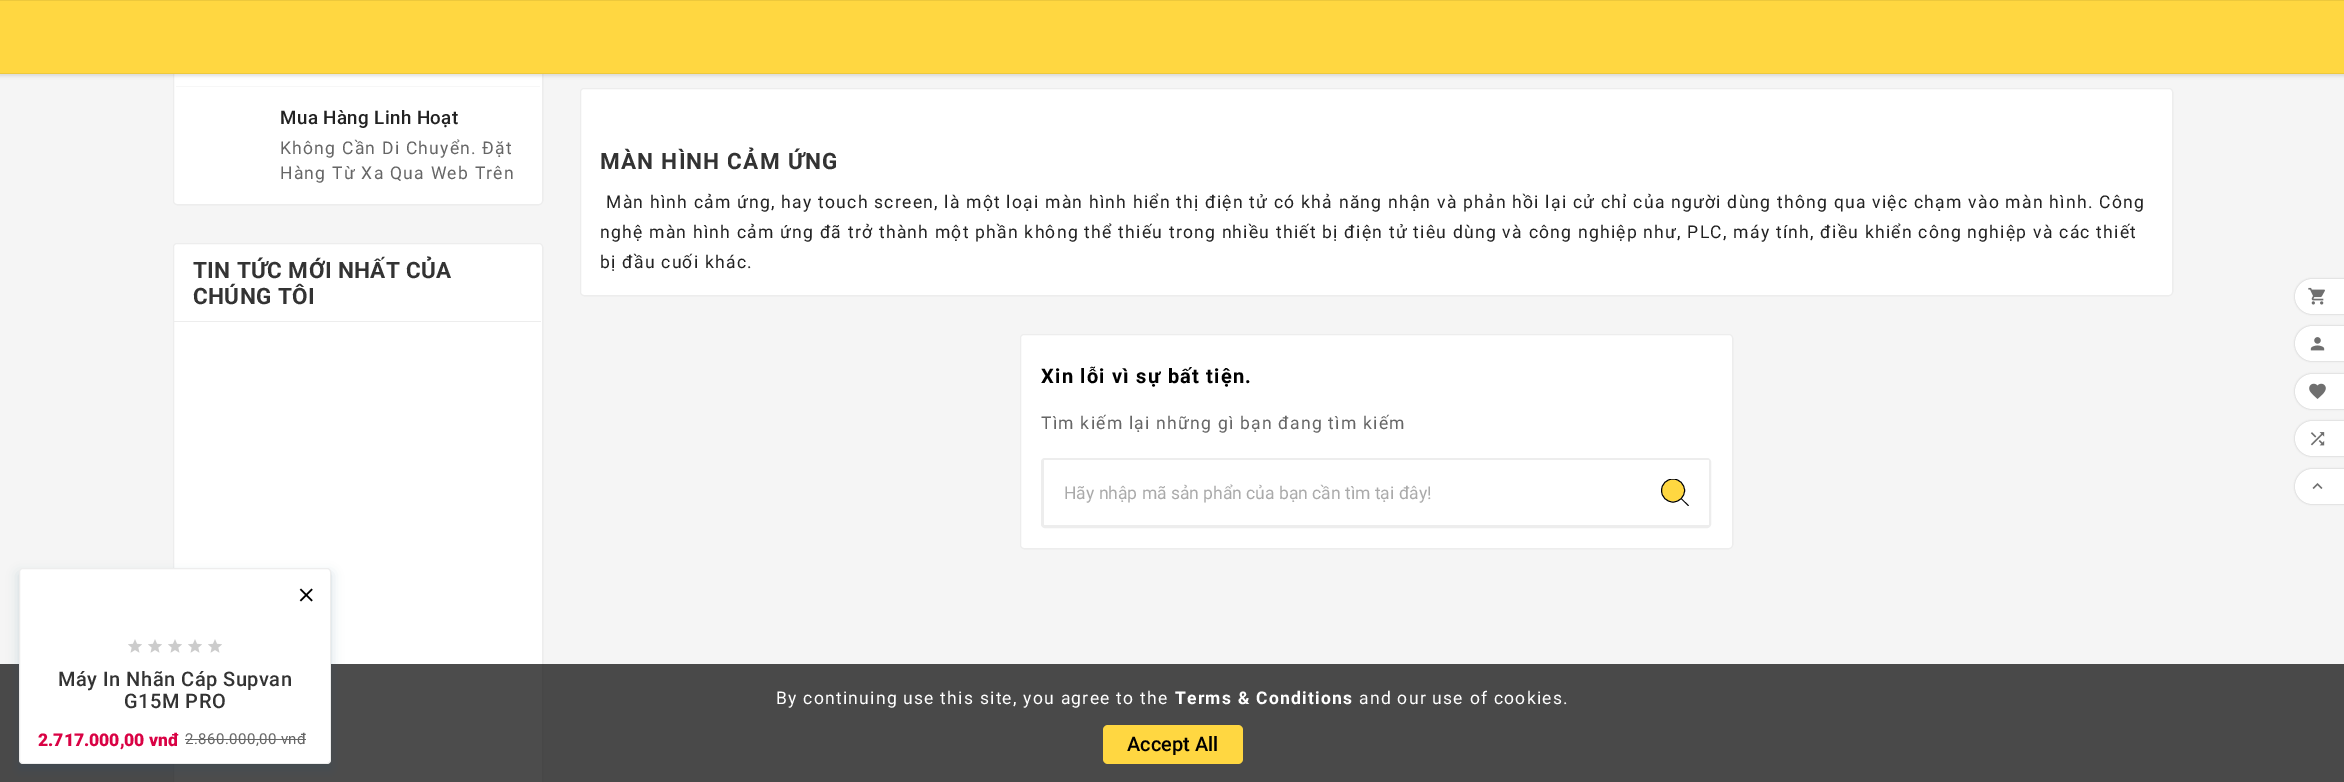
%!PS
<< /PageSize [2344 782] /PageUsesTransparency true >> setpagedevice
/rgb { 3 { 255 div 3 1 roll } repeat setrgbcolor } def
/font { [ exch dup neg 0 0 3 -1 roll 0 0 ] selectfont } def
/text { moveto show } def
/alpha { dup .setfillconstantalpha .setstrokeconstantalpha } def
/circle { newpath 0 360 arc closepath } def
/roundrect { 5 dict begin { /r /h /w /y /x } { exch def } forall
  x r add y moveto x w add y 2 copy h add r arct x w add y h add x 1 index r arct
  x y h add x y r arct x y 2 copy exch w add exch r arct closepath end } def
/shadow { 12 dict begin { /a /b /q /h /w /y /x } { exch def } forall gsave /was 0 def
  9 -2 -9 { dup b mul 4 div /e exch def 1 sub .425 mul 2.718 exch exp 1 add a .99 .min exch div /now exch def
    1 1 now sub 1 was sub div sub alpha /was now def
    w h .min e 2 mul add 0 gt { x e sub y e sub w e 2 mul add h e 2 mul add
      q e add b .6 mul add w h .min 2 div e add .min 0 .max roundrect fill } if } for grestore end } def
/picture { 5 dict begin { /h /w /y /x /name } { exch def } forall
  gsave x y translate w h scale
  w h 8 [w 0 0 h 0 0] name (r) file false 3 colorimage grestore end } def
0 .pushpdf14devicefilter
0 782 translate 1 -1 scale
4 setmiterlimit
245 245 245 rgb
0 0 2344 782 rectfill
255 255 255 rgb
173 -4 370 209 4 roundrect fill
0.07 alpha
0 0 0 rgb
173.5 -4.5 369 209 3.5 roundrect stroke
1 alpha
128 128 128 rgb
-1 0 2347 76 0 2 0.27 shadow
255 215 65 rgb
0 1 2344 72 rectfill
237 200 60 rgb
0 0 2344 1 rectfill
0 73 2344 1 rectfill
247 247 247 rgb
176 86 364 1 rectfill
255 255 255 rgb
173 243 370 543 4 roundrect fill
0.07 alpha
0 0 0 rgb
173.5 243.5 369 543 3.5 roundrect stroke
1 alpha
237 237 237 rgb
174 321 367 1 rectfill
255 255 255 rgb
580 88 1593 208 4 roundrect fill
0.07 alpha
0 0 0 rgb
580.5 88.5 1592 207 3.5 roundrect stroke
1 alpha
255 255 255 rgb
1020 334 713 215 4 roundrect fill
0.07 alpha
0 0 0 rgb
1020.5 334.5 712 214 3.5 roundrect stroke
1 alpha
237 237 237 rgb
3 setlinewidth
1042.5 459.5 667 67 2.5 roundrect stroke
255 255 255 rgb
1045 460 moveto 596 0 rlineto 0 65 rlineto -596 0 rlineto -0.5 0 -1 -0.5 -1 -1 rcurveto 0 -63 rlineto 0 -0.5 0.5 -1 1 -1 rcurveto closepath fill
1641 460 moveto 67 0 rlineto 0.5 0 1 0.5 1 1 rcurveto 0 63 rlineto 0 0.5 -0.5 1 -1 1 rcurveto -67 0 rlineto closepath fill
0 0 0 rgb
1688 506 moveto -7 -7 rlineto 0.5 -0.5 rlineto 7.5 7 rlineto closepath fill
255 215 65 rgb
1673 490.5 11 circle fill
gsave
1661 479 28 27 rectclip
0 0 0 rgb
0.9 setlinewidth
1673 490.5 11.5 circle stroke
grestore
0 0 0 rgb
2295 279 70 35 17.5 1 0.2 shadow
255 255 255 rgb
2312.5 279 moveto 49.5 0 rlineto 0 35 rlineto -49.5 0 rlineto -9.5 0 -17.5 -8 -17.5 -17.5 rcurveto 0 -9.5 8 -17.5 17.5 -17.5 rcurveto closepath fill
(img_01.rgb) 2308 287 17 18 picture
0 0 0 rgb
2295 326 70 35 17.5 1 0.2 shadow
255 255 255 rgb
2312.5 326 moveto 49.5 0 rlineto 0 35 rlineto -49.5 0 rlineto -9.5 0 -17.5 -8 -17.5 -17.5 rcurveto 0 -9.5 8 -17.5 17.5 -17.5 rcurveto closepath fill
(img_02.rgb) 2310 337 15 14 picture
0 0 0 rgb
2295 374 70 35 17.5 1 0.2 shadow
255 255 255 rgb
2312.5 374 moveto 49.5 0 rlineto 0 35 rlineto -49.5 0 rlineto -9.5 0 -17.5 -8 -17.5 -17.5 rcurveto 0 -9.5 8 -17.5 17.5 -17.5 rcurveto closepath fill
(img_03.rgb) 2309 383 17 16 picture
0 0 0 rgb
2295 421 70 35 17.5 1 0.2 shadow
255 255 255 rgb
2312.5 421 moveto 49.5 0 rlineto 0 35 rlineto -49.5 0 rlineto -9.5 0 -17.5 -8 -17.5 -17.5 rcurveto 0 -9.5 8 -17.5 17.5 -17.5 rcurveto closepath fill
(img_04.rgb) 2310 432 15 14 picture
0 0 0 rgb
2295 469 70 35 17.5 1 0.2 shadow
255 255 255 rgb
2312.5 469 moveto 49.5 0 rlineto 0 35 rlineto -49.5 0 rlineto -9.5 0 -17.5 -8 -17.5 -17.5 rcurveto 0 -9.5 8 -17.5 17.5 -17.5 rcurveto closepath fill
(img_05.rgb) 2312 483 11 6 picture
0.7 alpha
0 0 0 rgb
0 664 2344 118 rectfill
1 alpha
23 84 116 rgb
19 574 312 196 0 6 0.18 shadow
255 255 255 rgb
19 568 312 196 4 roundrect fill
0.07 alpha
0 0 0 rgb
1 setlinewidth
19.5 568.5 311 195 3.5 roundrect stroke
1 alpha
(img_06.rgb) 299 588 14 14 picture
(img_07.rgb) 128 639 14 14 picture
(img_07.rgb) 148 639 14 14 picture
(img_07.rgb) 168 639 14 14 picture
(img_07.rgb) 188 639 14 14 picture
(img_07.rgb) 208 639 14 14 picture
102 102 102 rgb
185 739 121 1 rectfill
255 215 65 rgb
1103 725 140 39 5 roundrect fill
/Roboto-Medium 18.75 font
34 34 34 rgb
280 124 moveto 0.4 0 (Mua Hàng Linh Hoạt) ashow
/Roboto-Regular 17.5 font
102 102 102 rgb
280 154 moveto 1.25 0 (Không Cần Di Chuyển. Đặt) ashow
280 179 moveto 1.25 0 (Hàng Từ Xa Qua Web Trên) ashow
/Roboto-Bold 22.5 font
51 51 51 rgb
193 278 moveto 0.4 0 (TIN TỨC MỚI NHẤT CỦA) ashow
193 304 moveto 0.4 0 (CHÚNG TÔI) ashow
/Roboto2-Bold 22.5 font
600 169 moveto 1.25 0 (MÀN HÌNH CẢM ỨNG) ashow
/Roboto-Regular 17.5 font
34 34 34 rgb
606 208 moveto 1.25 0 (Màn hình cảm ứng, hay touch screen, là một loại màn hình hiển thị điện tử có khả năng nhận và phản hồi lại cử chỉ của người dùng thông qua việc chạm vào màn hình. Công) ashow
600 238 moveto 1.25 0 (nghệ màn hình cảm ứng đã trở thành một phần không thể thiếu trong nhiều thiết bị điện tử tiêu dùng và công nghiệp như, PLC, máy tính, điều khiển công nghiệp và các thiết) ashow
600 268 moveto 1.25 0 (bị đầu cuối khác.) ashow
/Roboto2-Bold 20 font
0 0 0 rgb
1041 383 moveto 1.25 0 (Xin lỗi vì sự bất tiện.) ashow
/Roboto-Regular 17.5 font
102 102 102 rgb
1041 429 moveto 1.25 0 (Tìm kiếm lại những gì bạn đang tìm kiếm) ashow
170 170 170 rgb
(Hãy nhập mã sản phẩn của bạn cần tìm tại đây!) 1064 499 text
/Roboto-Medium 20 font
51 51 51 rgb
58 686 moveto 0.5 0 (Máy In Nhãn Cáp Supvan) ashow
124 708 moveto 0.5 0 (G15M PRO) ashow
/Roboto-Black 17.5 font
217 2 68 rgb
(2.717.000,00 vnđ) 38 746 text
/Roboto-Regular 15 font
102 102 102 rgb
185 744 moveto 0.4 0 (2.860.000,00 vnđ) ashow
/Roboto-Regular 17.5 font
255 255 255 rgb
776 704 moveto 1.25 0 (By continuing use this site, you agree to the) ashow
/Roboto2-Bold 17.5 font
1175 704 moveto 1.25 0 (Terms & Conditions) ashow
/Roboto-Regular 17.5 font
1359 704 moveto 1.25 0 (and our use of cookies.) ashow
/Roboto-Medium 20 font
0 0 0 rgb
(Accept All) 1127 751 text
.poppdf14devicefilter showpage
